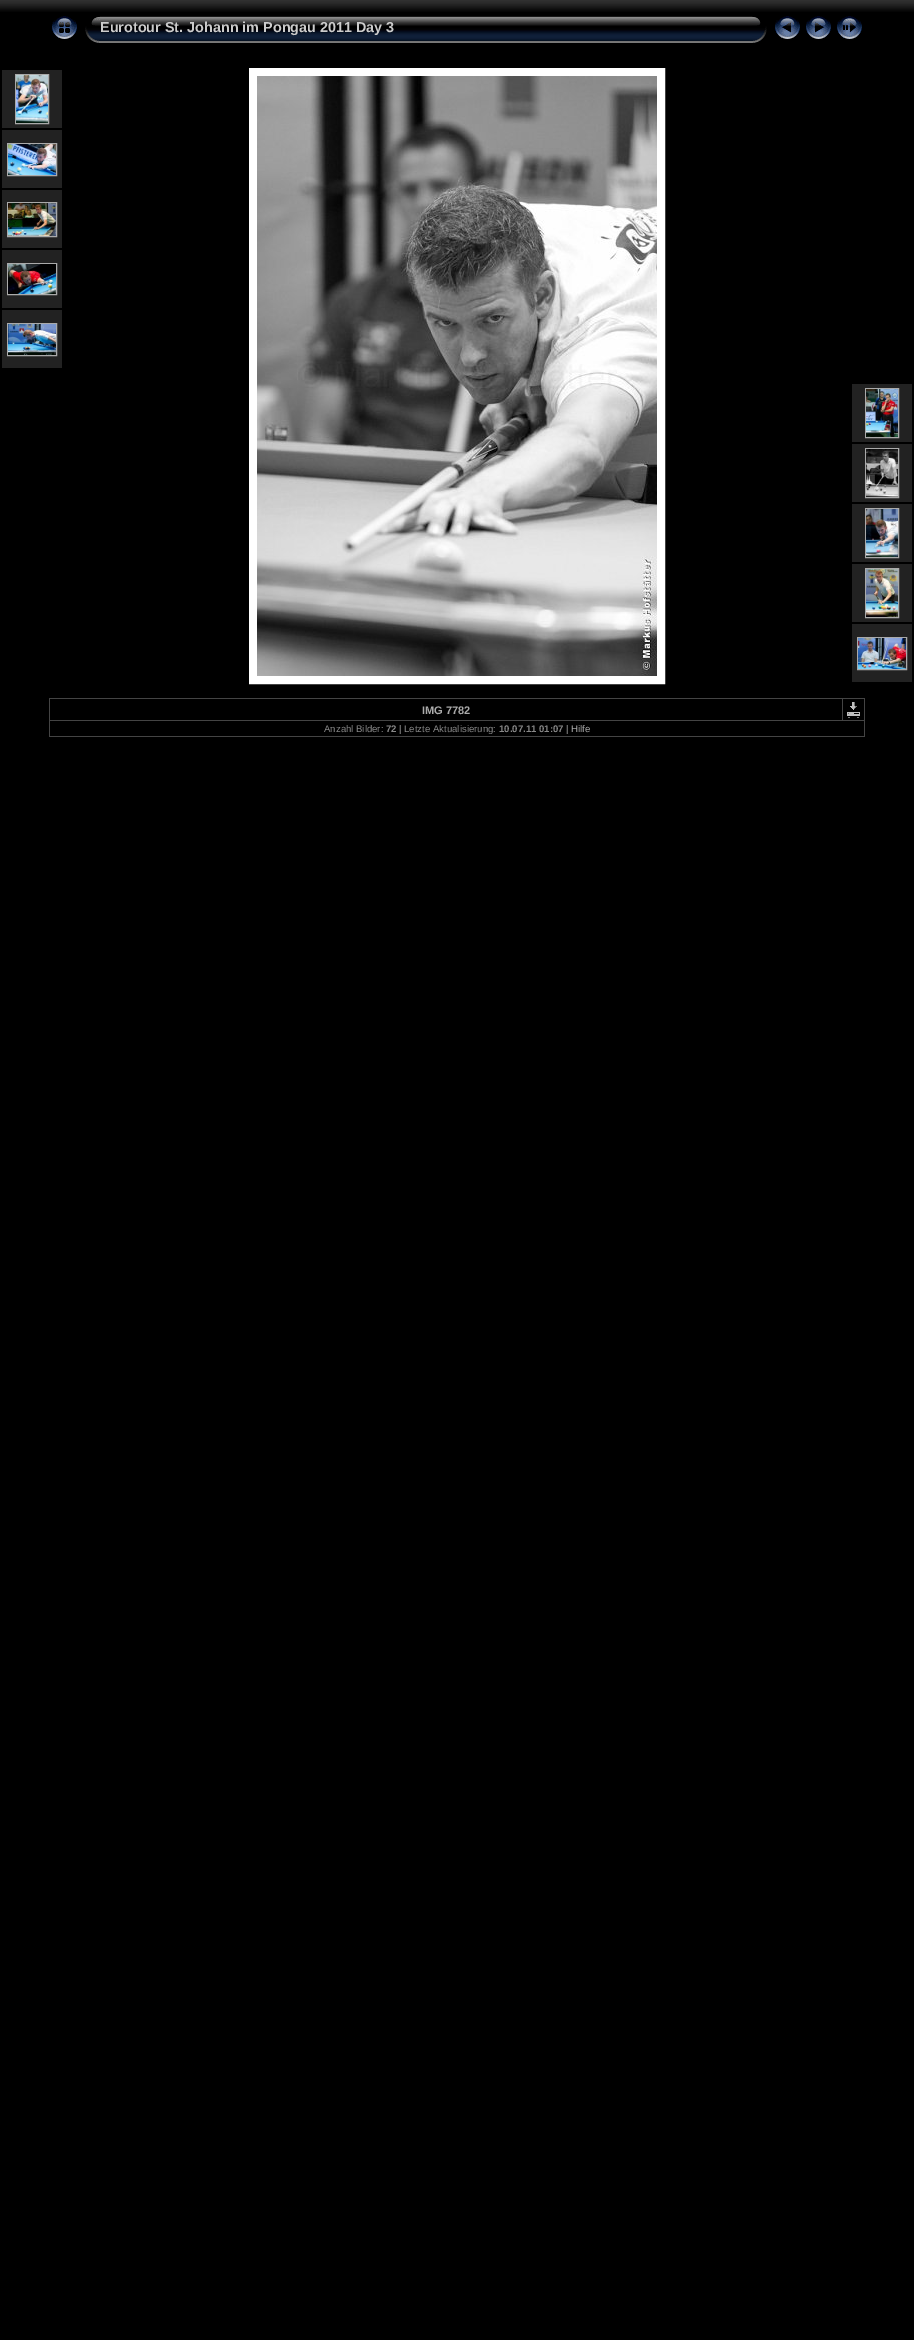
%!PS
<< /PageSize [914 2340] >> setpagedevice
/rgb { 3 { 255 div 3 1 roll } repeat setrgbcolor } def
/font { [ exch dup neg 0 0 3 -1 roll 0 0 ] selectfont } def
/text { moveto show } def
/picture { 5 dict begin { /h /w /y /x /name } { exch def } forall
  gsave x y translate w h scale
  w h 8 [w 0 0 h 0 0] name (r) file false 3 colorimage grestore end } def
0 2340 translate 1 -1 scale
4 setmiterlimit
0 0 0 rgb
0 0 914 2340 rectfill
(img_01.rgb) 0 0 914 12 picture
(img_02.rgb) 52 16 25 23 picture
(img_03.rgb) 85 16 15 27 picture
(img_04.rgb) 100 16 652 27 picture
(img_05.rgb) 752 16 15 27 picture
(img_06.rgb) 775 16 25 23 picture
(img_07.rgb) 806 16 25 23 picture
(img_08.rgb) 837 16 25 23 picture
34 34 34 rgb
2 70 60 58 rectfill
170 170 170 rgb
15.5 74.5 33 49 rectstroke
(img_09.rgb) 16 75 32 48 picture
34 34 34 rgb
2 130 60 58 rectfill
170 170 170 rgb
7.5 143.5 49 32 rectstroke
(img_10.rgb) 8 144 48 31 picture
34 34 34 rgb
2 190 60 58 rectfill
170 170 170 rgb
7.5 202.5 49 34 rectstroke
(img_11.rgb) 8 203 48 33 picture
34 34 34 rgb
2 250 60 58 rectfill
170 170 170 rgb
7.5 263.5 49 31 rectstroke
(img_12.rgb) 8 264 48 30 picture
34 34 34 rgb
2 310 60 58 rectfill
170 170 170 rgb
7.5 323.5 49 32 rectstroke
(img_13.rgb) 8 324 48 31 picture
255 255 255 rgb
8 setlinewidth
253 72 408 608 rectstroke
(img_14.rgb) 257 76 400 600 picture
34 34 34 rgb
852 384 60 58 rectfill
170 170 170 rgb
1 setlinewidth
865.5 388.5 33 49 rectstroke
(img_15.rgb) 866 389 32 48 picture
34 34 34 rgb
852 444 60 58 rectfill
170 170 170 rgb
865.5 448.5 33 49 rectstroke
(img_16.rgb) 866 449 32 48 picture
34 34 34 rgb
852 504 60 58 rectfill
170 170 170 rgb
865.5 508.5 33 49 rectstroke
(img_17.rgb) 866 509 32 48 picture
34 34 34 rgb
852 564 60 58 rectfill
170 170 170 rgb
865.5 568.5 33 49 rectstroke
(img_18.rgb) 866 569 32 48 picture
34 34 34 rgb
852 624 60 58 rectfill
170 170 170 rgb
857.5 637.5 49 32 rectstroke
(img_19.rgb) 858 638 48 31 picture
68 68 68 rgb
49 698 816 1 rectfill
864 698 1 39 rectfill
49 736 816 1 rectfill
49 698 1 39 rectfill
49 720 816 1 rectfill
842 698 1 23 rectfill
(img_20.rgb) 847 702 13 16 picture
/LiberationSans-Bold 14.4 font
204 204 204 rgb
(Eurotour St. Johann im Pongau 2011 Day 3) 100 32 text
/LiberationSans-Bold 11 font
170 170 170 rgb
(IMG 7782) 422 714 text
/LiberationSans-Regular 9.6 font
136 136 136 rgb
(Anzahl Bilder:) 324 732 text
/LiberationSans-Bold 9.6 font
(72) 386 732 text
/LiberationSans-Regular 9.6 font
(| Letzte Aktualisierung:) 399 732 text
/LiberationSans-Bold 9.6 font
(10.07.11 01:07) 499 732 text
/LiberationSans-Regular 9.6 font
(|) 566 732 text
170 170 170 rgb
(Hilfe) 571 732 text
showpage
